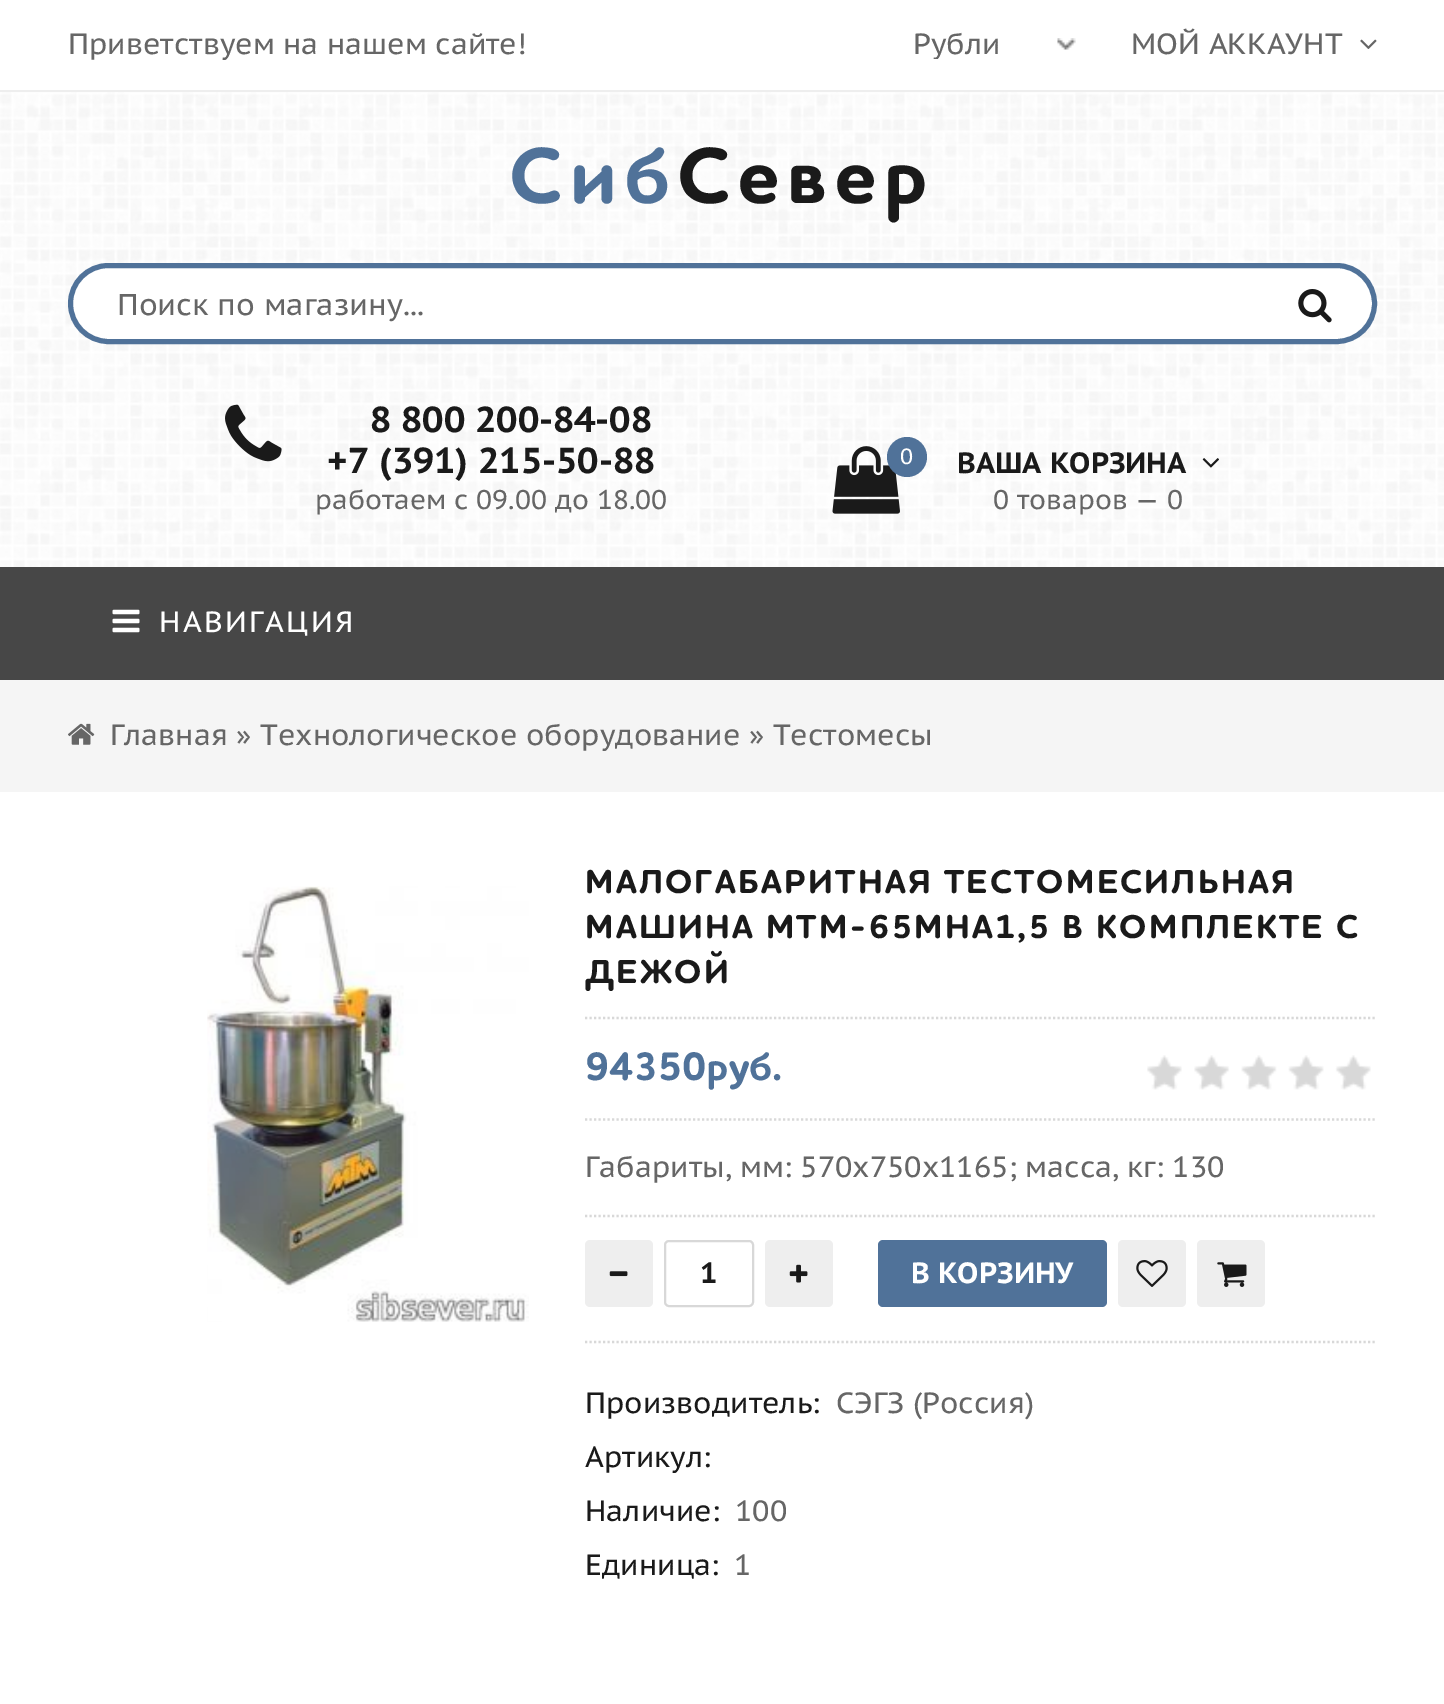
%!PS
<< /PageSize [1444 1704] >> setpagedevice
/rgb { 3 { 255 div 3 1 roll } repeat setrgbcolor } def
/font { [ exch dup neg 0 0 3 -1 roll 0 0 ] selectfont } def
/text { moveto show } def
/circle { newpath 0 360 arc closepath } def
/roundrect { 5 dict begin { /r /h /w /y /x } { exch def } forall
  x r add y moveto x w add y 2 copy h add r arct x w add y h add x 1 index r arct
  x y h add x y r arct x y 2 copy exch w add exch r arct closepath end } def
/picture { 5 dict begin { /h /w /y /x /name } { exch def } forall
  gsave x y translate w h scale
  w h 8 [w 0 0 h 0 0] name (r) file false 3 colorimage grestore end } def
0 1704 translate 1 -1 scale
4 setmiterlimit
255 255 255 rgb
0 0 1444 1704 rectfill
238 238 238 rgb
0 90 1444 2 rectfill
(img_01.rgb) 1057 38 19 12 picture
(img_02.rgb) 1360 39 17 10 picture
(img_03.rgb) 0 92 1444 475 picture
255 255 255 rgb
70.5 265.5 1304 76 38 roundrect gsave fill grestore
80 114 153 rgb
5 setlinewidth
stroke
(img_04.rgb) 1298 289 34 34 picture
(img_05.rgb) 225 404 57 58 picture
(img_06.rgb) 832 446 68 68 picture
907 457 20 circle fill
(img_07.rgb) 1202 458 17 10 picture
71 71 71 rgb
0 567 1444 113 rectfill
(img_08.rgb) 112 609 28 24 picture
245 245 245 rgb
0 680 1444 112 rectfill
(img_09.rgb) 68 723 27 22 picture
(img_10.rgb) 207 886 322 436 picture
216 216 216 rgb
2.2 setlinewidth
[2.25 2.25] 0 setdash
585 1018 moveto 792 0 rlineto stroke
585 1119.5 moveto 792 0 rlineto stroke
(img_11.rgb) 1147 1055 224 35 picture
585 1216 moveto 792 0 rlineto stroke
585 1342 moveto 792 0 rlineto stroke
238 238 238 rgb
585 1240 68 67 5 roundrect fill
(img_12.rgb) 609 1271 19 6 picture
216 216 216 rgb
2 setlinewidth
[] 0 setdash
665 1241 88 65 4 roundrect stroke
238 238 238 rgb
765 1240 68 67 5 roundrect fill
(img_13.rgb) 789 1264 19 19 picture
80 114 153 rgb
878 1240 229 67 5 roundrect fill
238 238 238 rgb
1118 1240 68 67 5 roundrect fill
(img_14.rgb) 1136 1260 32 27 picture
1197 1240 68 67 5 roundrect fill
(img_15.rgb) 1217 1262 30 25 picture
/PTSansCaption-Regular 29.25 font
102 102 102 rgb
(Приветствуем на нашем сайте!) 68 54 text
gsave
911 29 133 30 rectclip
(Рубли) 913 54 text
grestore
(МОЙ АККАУНТ) 1131 54 text
/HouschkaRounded-Bold 81 font
80 114 153 rgb
509 203 moveto 6.75 0 (Сиб) ashow
26 26 26 rgb
677 203 moveto 6.75 0 (Север) ashow
/PTSansCaption-Regular 30 font
102 102 102 rgb
(Поиск по магазину...) 117 315 text
/PTSansCaption-Bold 36 font
26 26 26 rgb
(8 800 200-84-08) 370 432 text
(+7 \(391\) 215-50-88) 327 473 text
/PTSansCaption-Regular 27 font
102 102 102 rgb
(работаем с 09.00 до 18.00) 315 509 text
/PTSansCaption-Regular 22 font
255 255 255 rgb
(0) 900 464 text
/PTSansCaption-Bold 29.25 font
26 26 26 rgb
(ВАША КОРЗИНА) 957 473 text
/PTSansCaption-Regular 27 font
102 102 102 rgb
(0 товаров — 0) 993 509 text
/PTSansCaption-Regular 29.25 font
255 255 255 rgb
159 632 moveto 2.25 0 (НАВИГАЦИЯ) ashow
102 102 102 rgb
(Главная » Технологическое оборудование » Тестомесы) 110 745 text
/HouschkaRounded-Bold 33.75 font
26 26 26 rgb
585 893 moveto 2.25 0 (МАЛОГАБАРИТНАЯ ТЕСТОМЕСИЛЬНАЯ) ashow
585 938 moveto 2.25 0 (МАШИНА МТМ-65МНА1,5 В КОМПЛЕКТЕ С) ashow
585 983 moveto 2.25 0 (ДЕЖОЙ) ashow
/HouschkaRounded-Bold 40.5 font
80 114 153 rgb
(94350руб.) 585 1080 text
/PTSansCaption-Regular 29.25 font
102 102 102 rgb
(Габариты, мм: 570x750x1165; масса, кг: 130) 585 1177 text
/PTSansCaption-Bold 29.25 font
26 26 26 rgb
(1) 700 1283 text
255 255 255 rgb
(В КОРЗИНУ) 911 1283 text
/PTSansCaption-Regular 29.25 font
26 26 26 rgb
(Производитель:) 585 1413 text
102 102 102 rgb
(СЭГЗ \(Россия\)) 836 1413 text
26 26 26 rgb
(Артикул:) 585 1467 text
(Наличие:) 585 1521 text
102 102 102 rgb
(100) 735 1521 text
26 26 26 rgb
(Единица:) 585 1575 text
102 102 102 rgb
(1) 734 1575 text
showpage
